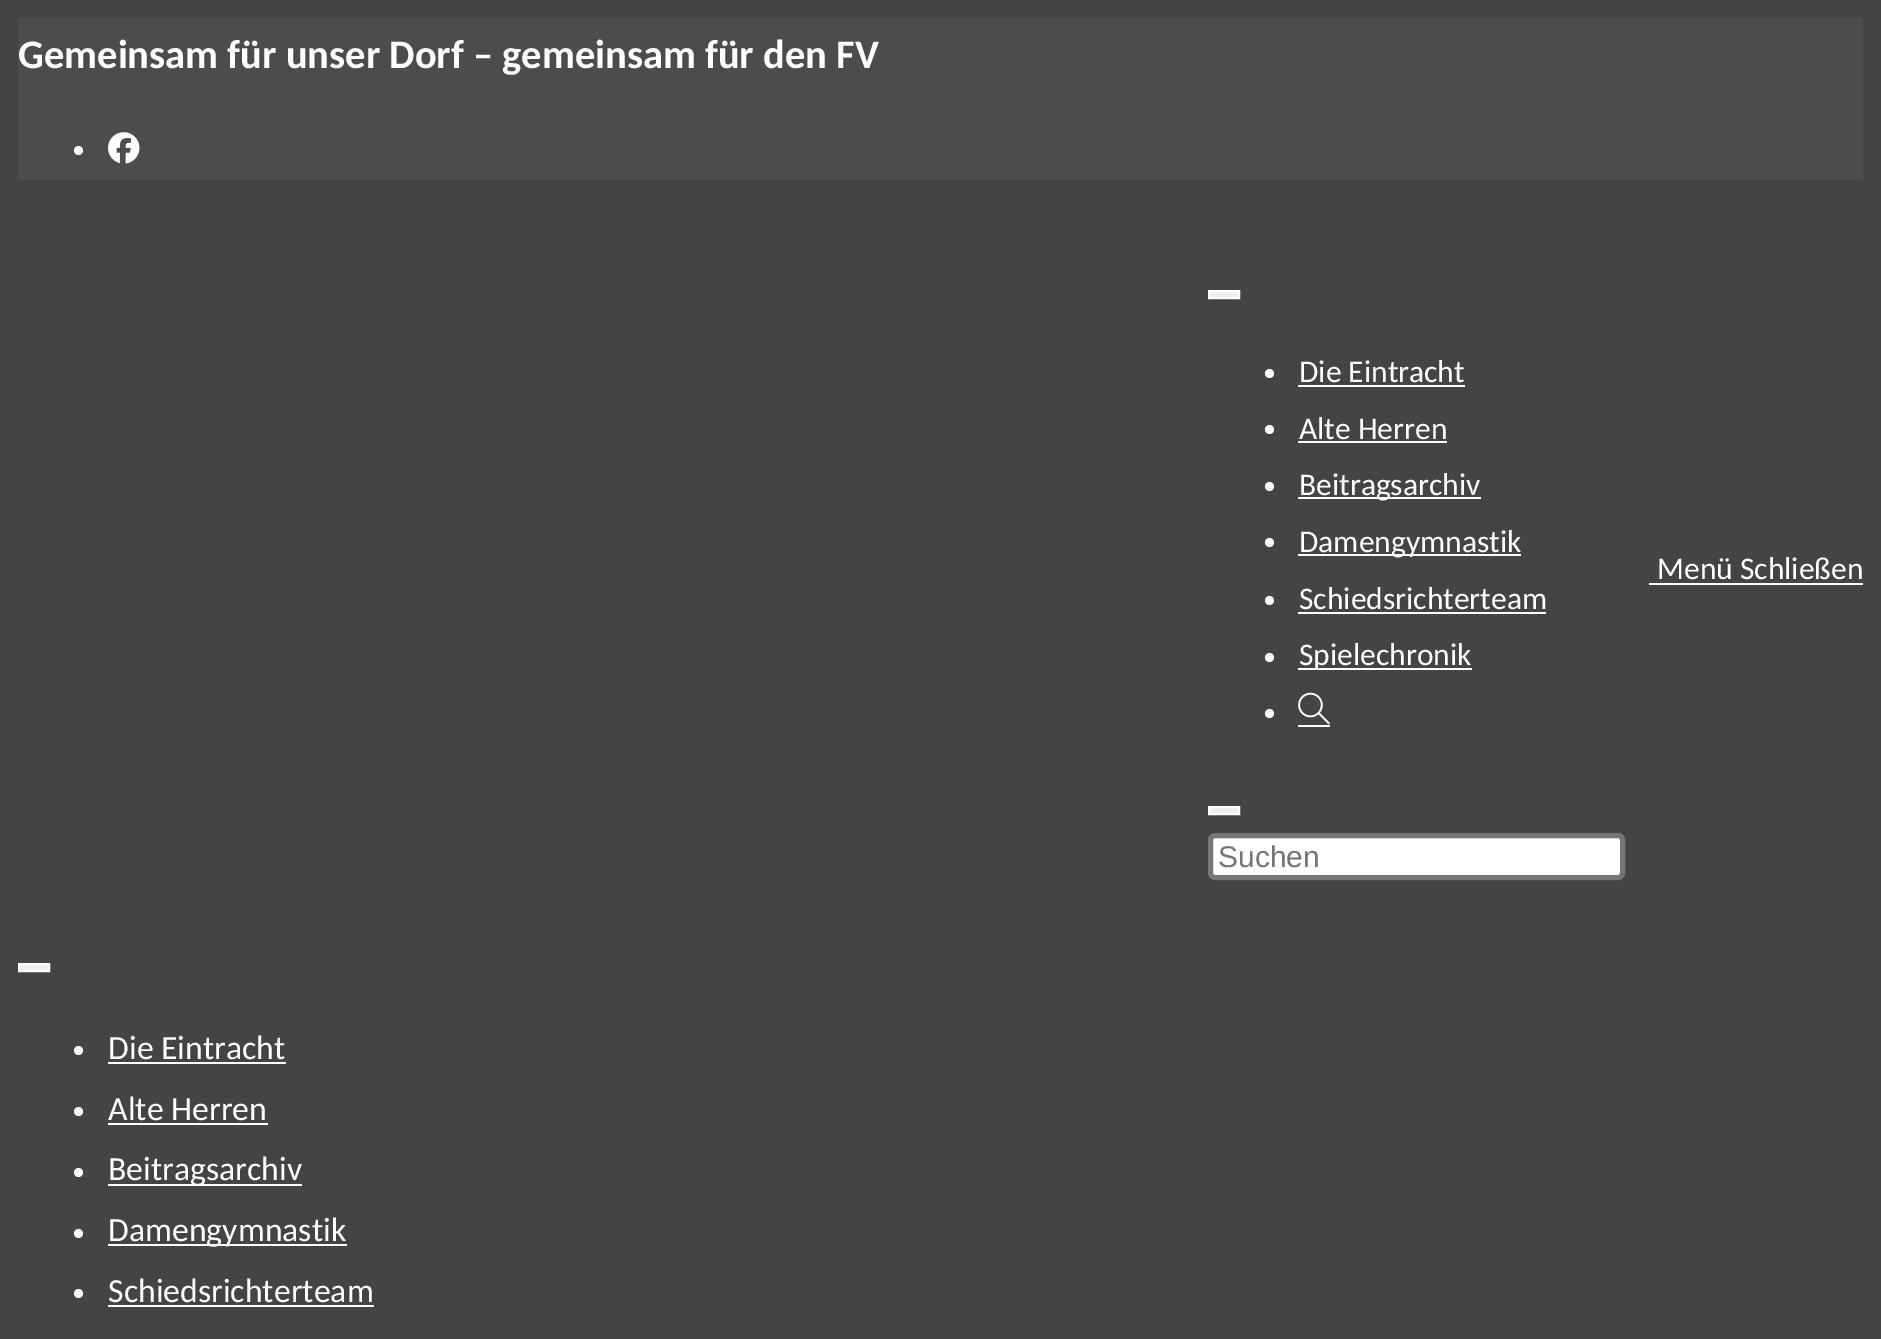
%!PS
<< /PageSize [1881 1339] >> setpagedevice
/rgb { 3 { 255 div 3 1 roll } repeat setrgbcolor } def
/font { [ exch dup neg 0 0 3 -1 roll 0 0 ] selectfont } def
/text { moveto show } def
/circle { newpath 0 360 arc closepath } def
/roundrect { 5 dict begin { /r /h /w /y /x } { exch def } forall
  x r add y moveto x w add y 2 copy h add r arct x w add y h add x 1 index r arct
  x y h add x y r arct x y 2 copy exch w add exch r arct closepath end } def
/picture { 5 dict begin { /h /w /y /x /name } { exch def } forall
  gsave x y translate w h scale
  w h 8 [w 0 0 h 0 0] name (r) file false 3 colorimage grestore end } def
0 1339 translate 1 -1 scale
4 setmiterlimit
68 68 68 rgb
0 0 1881 1339 rectfill
76 76 76 rgb
18 18 1845 162 rectfill
255 255 255 rgb
78.5 150.5 4.5 circle fill
(img_01.rgb) 108 132 32 32 picture
239 239 239 rgb
1209 291 moveto 30 0 rlineto 0 7 rlineto -30 0 rlineto closepath gsave fill grestore
255 255 255 rgb
2 setlinewidth
stroke
1269.5 373.5 4.5 circle fill
1298 385 167 2 rectfill
1269.5 429.5 4.5 circle fill
1298 441 149 2 rectfill
1269.5 486.5 4.5 circle fill
1298 497 183 2 rectfill
1269.5 542.5 4.5 circle fill
1298 554 223 2 rectfill
1269.5 600.5 4.5 circle fill
1298 612 248 2 rectfill
1269.5 657.5 4.5 circle fill
1298 668 174 2 rectfill
1269.5 713.5 4.5 circle fill
(img_02.rgb) 1298 692 32 33 picture
1298 725 32 2 rectfill
239 239 239 rgb
1209 807 moveto 30 0 rlineto 0 7 rlineto -30 0 rlineto closepath gsave fill grestore
255 255 255 rgb
stroke
1210.5 835.5 412 42 4.5 roundrect gsave fill grestore
118 118 118 rgb
5 setlinewidth
stroke
255 255 255 rgb
1649 583 214 2 rectfill
239 239 239 rgb
19 964 moveto 30 0 rlineto 0 7 rlineto -30 0 rlineto closepath gsave fill grestore
255 255 255 rgb
2 setlinewidth
stroke
78.5 1050.5 4.5 circle fill
108 1062 178 2 rectfill
78.5 1111.5 4.5 circle fill
108 1123 160 2 rectfill
78.5 1172.5 4.5 circle fill
108 1184 194 2 rectfill
78.5 1233.5 4.5 circle fill
108 1244 239 2 rectfill
78.5 1293.5 4.5 circle fill
108 1305 266 2 rectfill
/Carlito-Bold 40.5 font
(Gemeinsam für unser Dorf – gemeinsam für den FV) 18 68 text
/Carlito-Regular 31.5 font
(Die Eintracht) 1299 382 text
(Alte Herren) 1299 439 text
(Beitragsarchiv) 1299 495 text
(Damengymnastik) 1299 552 text
(Schiedsrichterteam) 1299 609 text
(Spielechronik) 1299 665 text
/LiberationSans-Regular 30 font
117 117 117 rgb
(Suchen) 1218 867 text
/Carlito-Regular 31.5 font
255 255 255 rgb
(Menü Schließen) 1657 579 text
/Carlito-Regular 33.75 font
(Die Eintracht) 108 1059 text
(Alte Herren) 108 1120 text
(Beitragsarchiv) 108 1180 text
(Damengymnastik) 108 1241 text
(Schiedsrichterteam) 108 1302 text
showpage
